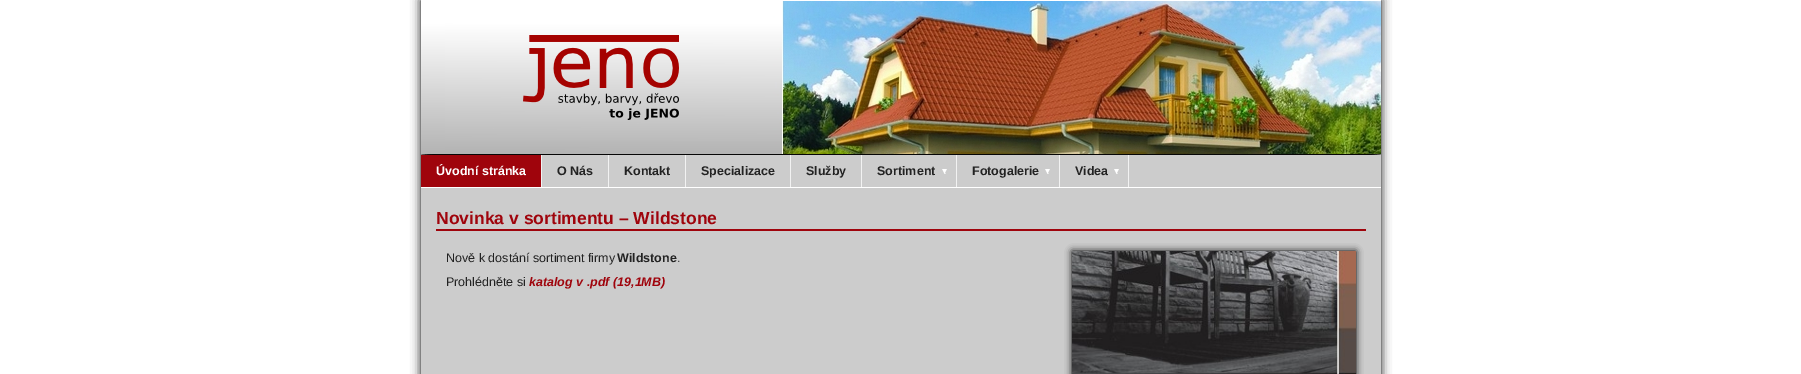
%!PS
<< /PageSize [1801 374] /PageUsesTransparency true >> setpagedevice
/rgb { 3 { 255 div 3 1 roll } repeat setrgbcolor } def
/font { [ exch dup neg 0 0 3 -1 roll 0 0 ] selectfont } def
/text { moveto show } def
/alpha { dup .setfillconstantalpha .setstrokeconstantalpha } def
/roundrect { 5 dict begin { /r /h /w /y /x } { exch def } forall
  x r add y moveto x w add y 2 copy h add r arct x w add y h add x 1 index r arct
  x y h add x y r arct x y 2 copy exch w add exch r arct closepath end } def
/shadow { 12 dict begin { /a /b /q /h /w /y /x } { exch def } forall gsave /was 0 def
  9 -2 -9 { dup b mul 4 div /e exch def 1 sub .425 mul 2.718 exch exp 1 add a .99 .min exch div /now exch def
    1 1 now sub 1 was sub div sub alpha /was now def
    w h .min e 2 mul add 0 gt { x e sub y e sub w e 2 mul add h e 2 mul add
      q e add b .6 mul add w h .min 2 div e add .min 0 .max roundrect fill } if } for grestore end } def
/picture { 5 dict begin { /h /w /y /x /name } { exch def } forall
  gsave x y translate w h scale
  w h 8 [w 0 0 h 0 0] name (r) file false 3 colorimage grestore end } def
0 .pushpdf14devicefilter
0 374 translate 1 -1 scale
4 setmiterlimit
255 255 255 rgb
0 0 1801 374 rectfill
0 0 0 rgb
421 0 960 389 0 5 1 shadow
(img_01.rgb) 421 1 960 153 picture
(img_02.rgb) 523 35 156 85 picture
255 255 255 rgb
421 0 960 1 rectfill
204 204 204 rgb
542 155 839 32 rectfill
159 4 12 rgb
421 155 120 32 rectfill
242 242 242 rgb
541 155 1 32 rectfill
608 155 1 32 rectfill
685 155 1 32 rectfill
790 155 1 32 rectfill
861 155 1 32 rectfill
956 155 1 32 rectfill
(img_03.rgb) 942 169 5 5 picture
1059 155 1 32 rectfill
(img_03.rgb) 1045 169 5 5 picture
1128 155 1 32 rectfill
(img_03.rgb) 1114 169 5 5 picture
204 204 204 rgb
421 188 960 186 rectfill
255 255 255 rgb
421 187 960 1 rectfill
159 4 12 rgb
436 229 930 2 rectfill
0 0 0 rgb
1072 251 284 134 0 3.5 1 shadow
(img_04.rgb) 1072 251 284 123 picture
/LiberationSans-Bold 12.5 font
255 255 255 rgb
(Úvodní stránka) 436 175 text
34 34 34 rgb
(O Nás) 557 175 text
(Kontakt) 624 175 text
(Specializace) 701 175 text
(Služby) 806 175 text
(Sortiment) 877 175 text
(Fotogalerie) 972 175 text
(Videa) 1075 175 text
/LiberationSans-Bold 17.5 font
159 4 12 rgb
(Novinka v sortimentu – Wildstone) 436 224 text
/LiberationSans-Regular 12.5 font
34 34 34 rgb
(Nově k dostání sortiment firmy) 446 262 text
/LiberationSans-Bold 12.5 font
(Wildstone) 617 262 text
/LiberationSans-Regular 12.5 font
(.) 677 262 text
(Prohlédněte si) 446 286 text
/LiberationSans-BoldItalic 12.5 font
159 4 12 rgb
(katalog v .pdf \(19,1MB\)) 529 286 text
.poppdf14devicefilter showpage
